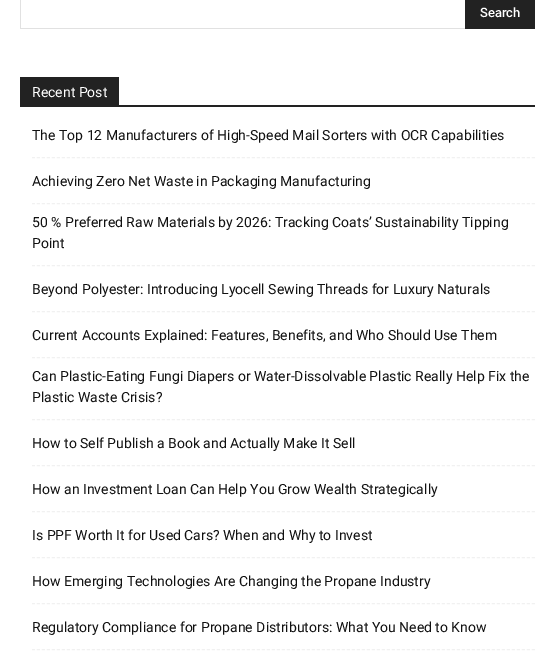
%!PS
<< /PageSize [555 666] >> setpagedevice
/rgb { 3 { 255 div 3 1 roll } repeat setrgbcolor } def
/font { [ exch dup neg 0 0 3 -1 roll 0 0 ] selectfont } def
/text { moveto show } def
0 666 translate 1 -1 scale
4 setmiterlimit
255 255 255 rgb
0 0 555 666 rectfill
225 225 225 rgb
20 28 445 1 rectfill
20 0 1 29 rectfill
34 34 34 rgb
465 0 70 29 rectfill
20 105 515 2 rectfill
20 77 99 28 rectfill
241 241 241 rgb
[3 2] 0 setdash
32 157.5 moveto 503 0 rlineto stroke
32 203.5 moveto 503 0 rlineto stroke
32 265.5 moveto 503 0 rlineto stroke
32 311.5 moveto 503 0 rlineto stroke
32 357.5 moveto 503 0 rlineto stroke
32 419.5 moveto 503 0 rlineto stroke
32 465.5 moveto 503 0 rlineto stroke
32 511.5 moveto 503 0 rlineto stroke
32 557.5 moveto 503 0 rlineto stroke
32 603.5 moveto 503 0 rlineto stroke
32 649.5 moveto 503 0 rlineto stroke
/Roboto-Medium 13 font
255 255 255 rgb
(Search) 480 17 text
/Roboto-Regular 14 font
(Recent Post) 32 97 text
17 17 17 rgb
(The Top 12 Manufacturers of High-Speed Mail Sorters with OCR Capabilities) 32 140 text
(Achieving Zero Net Waste in Packaging Manufacturing) 32 186 text
(50 % Preferred Raw Materials by 2026: Tracking Coats’ Sustainability Tipping) 32 227 text
(Point) 32 248 text
(Beyond Polyester: Introducing Lyocell Sewing Threads for Luxury Naturals) 32 294 text
(Current Accounts Explained: Features, Benefits, and Who Should Use Them) 32 340 text
(Can Plastic-Eating Fungi Diapers or Water-Dissolvable Plastic Really Help Fix the) 32 381 text
(Plastic Waste Crisis?) 32 402 text
(How to Self Publish a Book and Actually Make It Sell) 32 448 text
(How an Investment Loan Can Help You Grow Wealth Strategically) 32 494 text
(Is PPF Worth It for Used Cars? When and Why to Invest) 32 540 text
(How Emerging Technologies Are Changing the Propane Industry) 32 586 text
(Regulatory Compliance for Propane Distributors: What You Need to Know) 32 632 text
showpage
